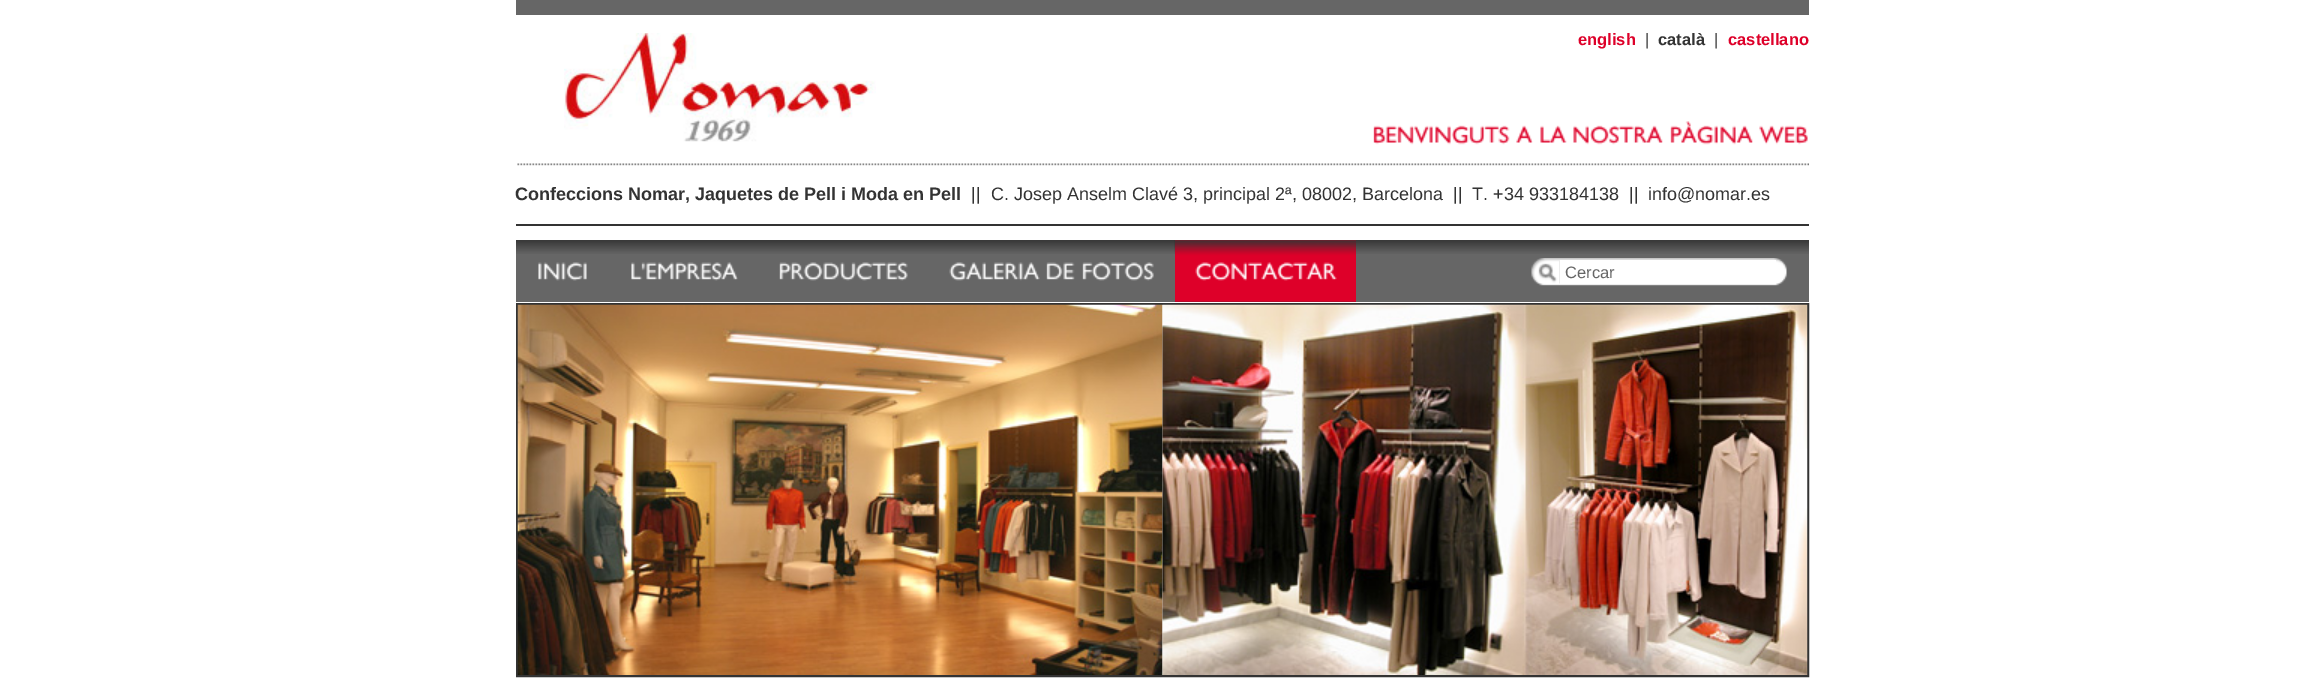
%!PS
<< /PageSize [2323 678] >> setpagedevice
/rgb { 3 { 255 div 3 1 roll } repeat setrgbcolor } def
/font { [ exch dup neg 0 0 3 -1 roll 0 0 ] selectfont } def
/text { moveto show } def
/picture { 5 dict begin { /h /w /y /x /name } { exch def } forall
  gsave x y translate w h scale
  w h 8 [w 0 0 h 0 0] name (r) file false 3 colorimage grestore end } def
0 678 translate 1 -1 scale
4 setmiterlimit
255 255 255 rgb
0 0 2323 678 rectfill
51 51 51 rgb
516 224 1293 2 rectfill
102 102 102 rgb
516 0 1293 15 rectfill
(img_01.rgb) 564 33 312 109 picture
(img_02.rgb) 1373 125 137 20 picture
(img_03.rgb) 1516 125 17 18 picture
(img_04.rgb) 1540 125 27 18 picture
(img_05.rgb) 1573 125 90 20 picture
(img_06.rgb) 1670 121 83 24 picture
(img_07.rgb) 1759 125 49 20 picture
(img_08.rgb) 517 163 1292 3 picture
516 240 1293 62 rectfill
(img_09.rgb) 516 240 1293 14 picture
(img_10.rgb) 538 262 49 19 picture
(img_11.rgb) 631 262 107 19 picture
(img_12.rgb) 779 262 129 19 picture
(img_13.rgb) 949 262 91 19 picture
(img_14.rgb) 1046 262 29 18 picture
(img_15.rgb) 1082 262 72 19 picture
222 0 41 rgb
1175 240 181 62 rectfill
(img_16.rgb) 1174 240 182 62 picture
(img_17.rgb) 1195 262 142 19 picture
(img_18.rgb) 1531 258 256 28 picture
255 255 255 rgb
1560 260 216 24 rectfill
51 51 51 rgb
2 setlinewidth
517 304 1291 372 rectstroke
(img_19.rgb) 517 304 646 371 picture
(img_20.rgb) 1162 304 646 371 picture
/LiberationSans-Bold 16.5 font
222 0 41 rgb
(english) 1578 45 text
/LiberationSans-Regular 16.5 font
51 51 51 rgb
(|) 1645 45 text
/LiberationSans-Bold 16.5 font
(català) 1658 45 text
/LiberationSans-Regular 16.5 font
(|) 1714 45 text
/LiberationSans-Bold 16.5 font
222 0 41 rgb
(castellano) 1728 45 text
/LiberationSans-Bold 18 font
51 51 51 rgb
(Confeccions Nomar, Jaquetes de Pell i Moda en Pell) 515 200 text
/LiberationSans-Regular 18 font
(||) 971 200 text
(C. Josep Anselm Clavé 3, principal 2ª, 08002, Barcelona) 991 200 text
(||  T. +34 933184138) 1453 200 text
(||) 1629 200 text
(info@nomar.es) 1648 200 text
/LiberationSans-Regular 16.5 font
102 102 102 rgb
(Cercar) 1565 278 text
showpage
